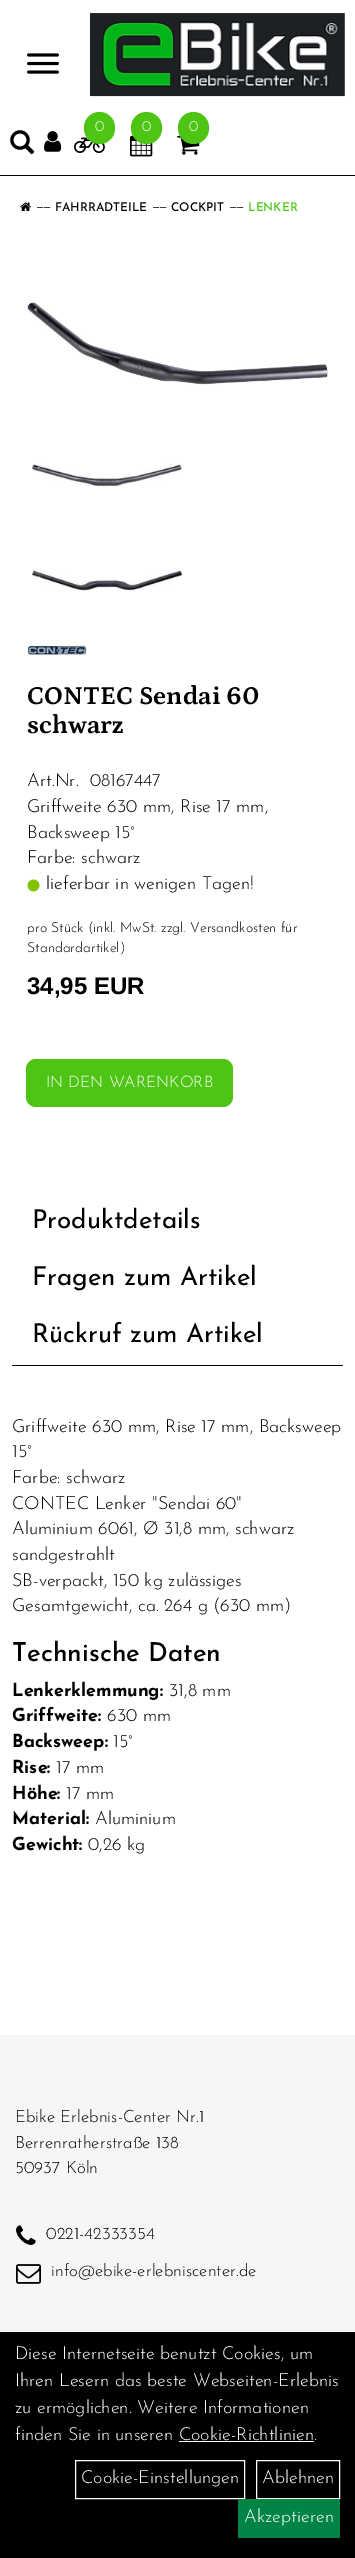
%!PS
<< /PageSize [355 2558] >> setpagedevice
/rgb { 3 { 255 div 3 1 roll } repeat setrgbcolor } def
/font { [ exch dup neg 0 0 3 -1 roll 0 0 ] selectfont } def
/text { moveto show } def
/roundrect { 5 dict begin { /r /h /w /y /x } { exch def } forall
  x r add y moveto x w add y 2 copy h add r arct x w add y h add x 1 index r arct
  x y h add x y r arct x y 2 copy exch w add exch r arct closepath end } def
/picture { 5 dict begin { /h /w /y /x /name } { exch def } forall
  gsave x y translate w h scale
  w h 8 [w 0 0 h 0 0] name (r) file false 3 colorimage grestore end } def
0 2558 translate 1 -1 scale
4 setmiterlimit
255 255 255 rgb
0 0 355 2558 rectfill
0 0 0 rgb
0 175 355 1 rectfill
(img_01.rgb) 27 53 32 21 picture
(img_02.rgb) 90 13 255 84 picture
(img_03.rgb) 74 137 31 16 picture
78 196 20 rgb
84 112 31 32 15.5 roundrect fill
(img_04.rgb) 130 135 23 22 picture
131 112 31 32 15.5 roundrect fill
(img_05.rgb) 177 135 23 20 picture
178 112 31 32 15.5 roundrect fill
(img_06.rgb) 10 130 25 25 picture
(img_07.rgb) 44 131 18 21 picture
(img_08.rgb) 20 202 11 9 picture
(img_09.rgb) 27 302 301 83 picture
(img_10.rgb) 32 463 150 24 picture
(img_11.rgb) 32 568 150 23 picture
(img_12.rgb) 27 645 60 10 picture
(img_13.rgb) 27 879 13 13 picture
26 1059 207 48 10 roundrect fill
0 0 0 rgb
12 1365 331 1 rectfill
245 246 248 rgb
0 2035 355 297 rectfill
(img_14.rgb) 16 2225 20 20 picture
(img_15.rgb) 16 2264 25 20 picture
0 0 0 rgb
0 2332 355 226 rectfill
255 255 255 rgb
179 2441 135 1 rectfill
75.5 2460.5 169 38 rectstroke
256.5 2460.5 83 38 rectstroke
0 132 70 rgb
238 2499 102 39 rectfill
/JosefinSans-Light 15 font
255 255 255 rgb
(0) 95 131 text
(0) 142 131 text
(0) 189 131 text
/JosefinSans-Light 18 font
0 0 0 rgb
36 211 moveto -2 0 (----) ashow
/JosefinSans-Medium 12 font
(FAHRRADTEILE) 55 211 text
/JosefinSans-Light 18 font
152 211 moveto -2 0 (----) ashow
/JosefinSans-Medium 12 font
(COCKPIT) 171 211 text
/JosefinSans-Light 18 font
229 211 moveto -2 0 (----) ashow
/JosefinSans-Medium 12 font
78 196 20 rgb
(LENKER) 248 211 text
/Petrona-Bold 26 font
0 0 0 rgb
(CONTEC Sendai 60) 27 704 text
(schwarz) 27 733 text
/JosefinSans-Light 18 font
(Art.Nr.  08167447) 27 786 text
(Griffweite 630 mm, Rise 17 mm,) 27 812 text
(Backsweep 15°) 27 838 text
(Farbe: schwarz) 27 863 text
(lieferbar in wenigen Tagen!) 46 889 text
/JosefinSans-Light 14 font
(pro Stück \(inkl. MwSt. zzgl. Versandkosten für) 27 932 text
(Standardartikel\)) 27 952 text
/LiberationSans-Bold 24 font
(34,95 EUR) 27 994 text
/JosefinSans-Light 16 font
255 255 255 rgb
(IN DEN WARENKORB) 46 1087 text
/JosefinSans-Regular 26 font
0 0 0 rgb
(Produktdetails) 32 1228 text
(Fragen zum Artikel) 32 1285 text
(Rückruf zum Artikel) 32 1342 text
/JosefinSans-Light 18 font
(Griffweite 630 mm, Rise 17 mm, Backsweep) 12 1432 text
(15°) 12 1457 text
(Farbe: schwarz) 12 1483 text
(CONTEC Lenker "Sendai 60") 12 1509 text
(Aluminium 6061, Ø 31,8 mm, schwarz) 12 1534 text
(sandgestrahlt) 12 1560 text
(SB-verpackt, 150 kg zulässiges) 12 1586 text
(Gesamtgewicht, ca. 264 g \(630 mm\)) 12 1611 text
/JosefinSans-Medium 26 font
(Technische Daten) 12 1661 text
/JosefinSans-Bold 18 font
(Lenkerklemmung:) 12 1696 text
/JosefinSans-Light 18 font
(31,8 mm) 169 1696 text
/JosefinSans-Bold 18 font
(Griffweite:) 12 1721 text
/JosefinSans-Light 18 font
(630 mm) 107 1721 text
/JosefinSans-Bold 18 font
(Backsweep:) 12 1747 text
/JosefinSans-Light 18 font
(15°) 113 1747 text
/JosefinSans-Bold 18 font
(Rise:) 12 1773 text
/JosefinSans-Light 18 font
(17 mm) 56 1773 text
/JosefinSans-Bold 18 font
(Höhe:) 12 1799 text
/JosefinSans-Light 18 font
(17 mm) 66 1799 text
/JosefinSans-Bold 18 font
(Material:) 12 1824 text
/JosefinSans-Light 18 font
(Aluminium) 95 1824 text
/JosefinSans-Bold 18 font
(Gewicht:) 12 1850 text
/JosefinSans-Light 18 font
(0,26 kg) 88 1850 text
/JosefinSans-Light 17 font
(Ebike Erlebnis-Center Nr.1) 15 2122 text
(Berrenratherstraße 138) 15 2148 text
(50937 Köln) 15 2173 text
(0221-42333354) 46 2239 text
(info@ebike-erlebniscenter.de) 51 2276 text
/JosefinSans-Light 18 font
255 255 255 rgb
(Diese Internetseite benutzt Cookies, um) 15 2359 text
(Ihren Lesern das beste Webseiten-Erlebnis) 15 2386 text
(zu ermöglichen. Weitere Informationen) 15 2413 text
(finden Sie in unseren Cookie-Richtlinien.) 15 2440 text
(Cookie-Einstellungen) 81 2483 text
(Ablehnen) 262 2483 text
(Akzeptieren) 244 2522 text
showpage
